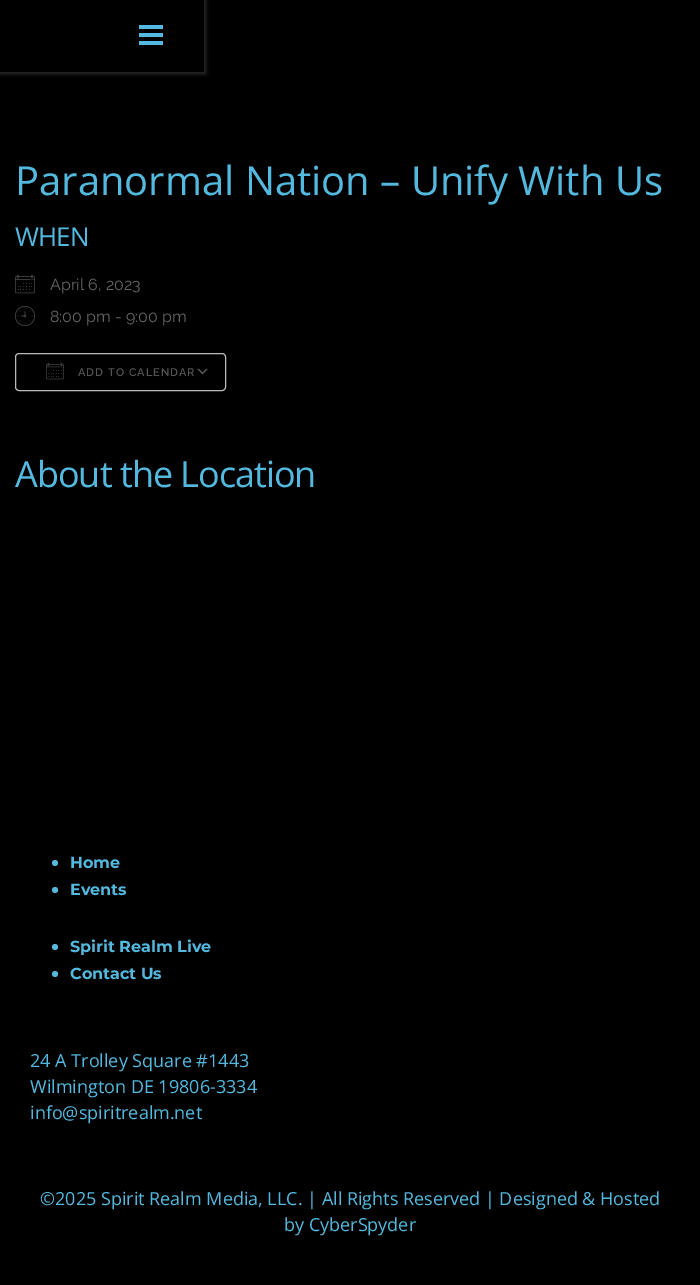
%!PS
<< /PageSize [700 1285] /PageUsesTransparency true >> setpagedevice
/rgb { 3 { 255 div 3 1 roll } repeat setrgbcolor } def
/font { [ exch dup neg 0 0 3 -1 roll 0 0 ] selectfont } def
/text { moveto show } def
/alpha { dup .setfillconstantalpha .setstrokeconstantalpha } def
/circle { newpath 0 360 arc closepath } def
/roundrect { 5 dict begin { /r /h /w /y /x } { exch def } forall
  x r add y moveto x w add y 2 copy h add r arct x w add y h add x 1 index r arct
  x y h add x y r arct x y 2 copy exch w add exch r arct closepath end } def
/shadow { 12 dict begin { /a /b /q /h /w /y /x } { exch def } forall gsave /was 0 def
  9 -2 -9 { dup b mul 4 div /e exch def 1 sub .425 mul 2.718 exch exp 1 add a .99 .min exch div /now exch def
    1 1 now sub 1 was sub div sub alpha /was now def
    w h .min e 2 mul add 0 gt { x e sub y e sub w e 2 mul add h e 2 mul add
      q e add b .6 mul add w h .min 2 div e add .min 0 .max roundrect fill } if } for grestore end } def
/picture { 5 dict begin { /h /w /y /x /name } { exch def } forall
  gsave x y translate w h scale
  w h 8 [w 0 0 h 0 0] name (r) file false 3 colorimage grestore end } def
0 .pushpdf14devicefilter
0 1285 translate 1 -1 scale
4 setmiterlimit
0 0 0 rgb
0 0 700 1285 rectfill
gsave
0 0 moveto 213 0 rlineto 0 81 rlineto -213 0 rlineto closepath 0 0 moveto 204 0 rlineto 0 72 rlineto -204 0 rlineto closepath eoclip newpath
85 85 85 rgb
-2 -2 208 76 0 2 0.5 shadow
grestore
84 185 223 rgb
139 25 24 4 rectfill
139 33 24 4 rectfill
139 41 24 4 rectfill
(img_01.rgb) 15 274 20 20 picture
(img_02.rgb) 15 306 20 20 picture
(img_03.rgb) 197 368 11 7 picture
186 186 186 rgb
15.5 353.5 210 37 3.5 roundrect stroke
(img_04.rgb) 46 362 18 18 picture
84 185 223 rgb
55 863 3 circle fill
55 890 3 circle fill
55 947 3 circle fill
55 974 3 circle fill
/OpenSans-Regular 40 font
(Paranormal Nation – Unify With Us) 15 195 text
/OpenSans-Regular 26 font
15 246 moveto -1 0 (WHEN) ashow
/Raleway-Regular 16 font
102 102 102 rgb
(April 6, 2023) 50 290 text
(8:00 pm - 9:00 pm) 50 322 text
/Raleway-SemiBold 11 font
84 84 84 rgb
78 376 moveto 1 0 (ADD TO CALENDAR) ashow
/OpenSans-Regular 36 font
84 185 223 rgb
15 487 moveto -1 0 (About the Location) ashow
/Montserrat-Thin 16 font
(Home) 70 868 text
(Events) 70 895 text
(Spirit Realm Live) 70 952 text
(Contact Us) 70 979 text
/OpenSans-Regular 18 font
(24 A Trolley Square #1443) 30 1067 text
(Wilmington DE 19806-3334) 30 1093 text
(info@spiritrealm.net) 30 1119 text
(©2025 Spirit Realm Media, LLC. | All Rights Reserved | Designed & Hosted) 40 1205 text
(by CyberSpyder) 284 1231 text
.poppdf14devicefilter showpage
